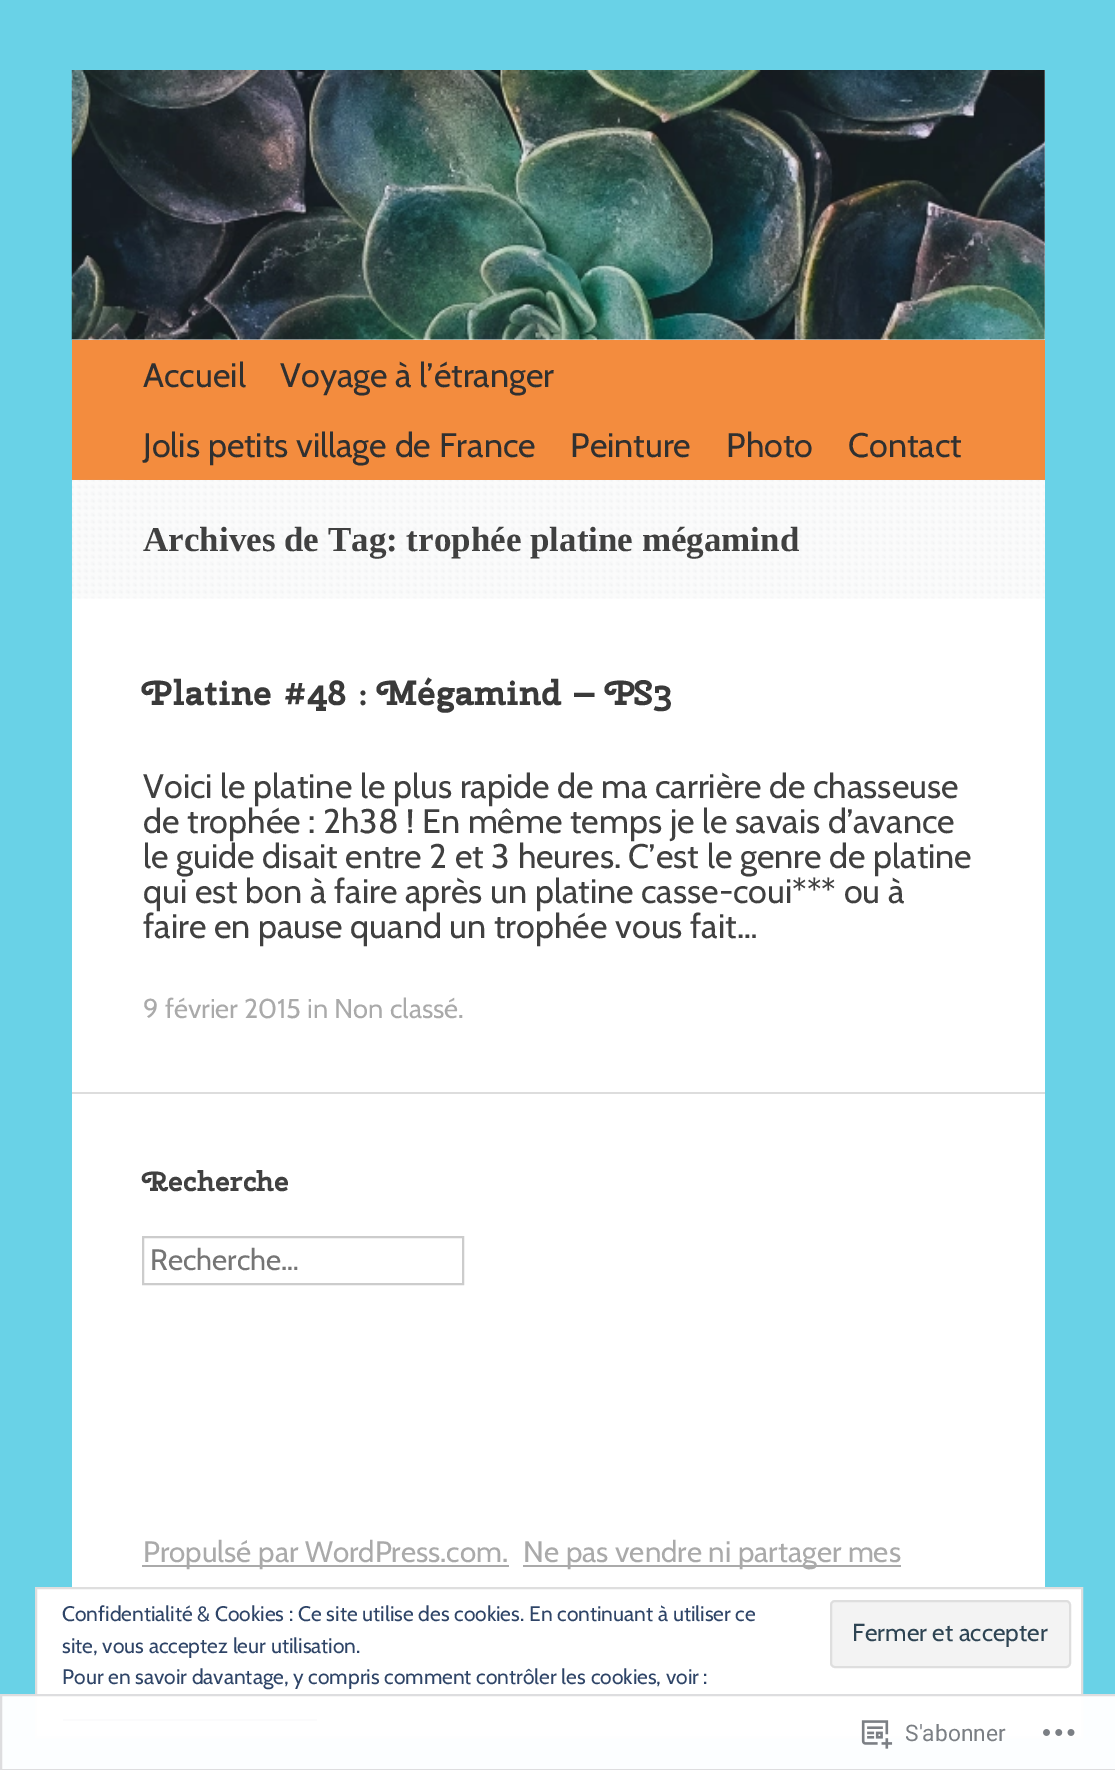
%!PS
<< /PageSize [1115 1770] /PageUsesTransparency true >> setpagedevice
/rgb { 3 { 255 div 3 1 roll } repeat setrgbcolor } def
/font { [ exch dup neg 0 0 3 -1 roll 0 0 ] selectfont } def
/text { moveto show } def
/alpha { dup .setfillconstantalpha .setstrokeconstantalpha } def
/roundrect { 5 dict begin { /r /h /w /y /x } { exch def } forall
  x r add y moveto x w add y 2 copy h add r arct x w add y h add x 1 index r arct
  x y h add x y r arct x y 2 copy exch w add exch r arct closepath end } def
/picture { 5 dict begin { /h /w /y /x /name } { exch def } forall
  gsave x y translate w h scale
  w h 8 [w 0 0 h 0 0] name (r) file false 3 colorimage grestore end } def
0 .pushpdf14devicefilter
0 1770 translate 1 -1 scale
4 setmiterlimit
105 210 231 rgb
0 0 1115 1770 rectfill
255 255 255 rgb
72 70 973 1517 rectfill
(img_01.rgb) 71 70 974 270 picture
243 140 62 rgb
72 340 973 140 rectfill
(img_02.rgb) 72 479 973 120 picture
124 479 856 1 rectfill
221 221 221 rgb
72 1092 973 2 rectfill
204 204 204 rgb
2 setlinewidth
143 1237 320 47 rectstroke
170 170 170 rgb
142 1565 367 2 rectfill
523 1565 378 2 rectfill
255 255 255 rgb
36 1588 moveto 1046 0 rlineto 0 149 rlineto -1046 0 rlineto closepath gsave fill grestore
222 222 222 rgb
stroke
243 243 243 rgb
831 1601 239 66 4 roundrect gsave fill grestore
222 222 222 rgb
stroke
46 68 103 rgb
63 1719 254 2 rectfill
0.98 alpha
255 255 255 rgb
0 1694 1115 76 rectfill
220 220 222 rgb
1 1695 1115 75 rectstroke
1 alpha
(img_03.rgb) 861 1720 32 29 picture
(img_04.rgb) 1043 1729 32 7 picture
/Cabin-Regular 34.1 font
48 48 48 rgb
(Accueil) 143 387 text
(Voyage à l’étranger) 280 387 text
(Jolis petits village de France) 143 457 text
(Peinture) 570 457 text
(Photo) 726 457 text
(Contact) 848 457 text
/LiberationSerif-Bold 35 font
64 64 64 rgb
(Archives de Tag: trophée platine mégamind) 143 551 text
/CherrySwash-Bold 35 font
58 58 58 rgb
(Platine #48 : Mégamind – PS3) 143 705 text
/Cabin-Regular 34.1 font
64 64 64 rgb
(Voici le platine le plus rapide de ma carrière de chasseuse) 143 798 text
(de trophée : 2h38 ! En même temps je le savais d’avance) 143 833 text
(le guide disait entre 2 et 3 heures. C’est le genre de platine) 143 868 text
(qui est bon à faire après un platine casse-coui*** ou à) 143 903 text
(faire en pause quand un trophée vous fait…) 143 938 text
/Cabin-Regular 27.25 font
170 170 170 rgb
(9 février 2015 in Non classé.) 143 1018 text
/CherrySwash-Bold 28 font
64 64 64 rgb
(Recherche) 143 1191 text
/Cabin-Regular 29.5 font
117 117 117 rgb
(Recherche…) 150 1270 text
170 170 170 rgb
(Propulsé par WordPress.com.) 143 1562 text
(Ne pas vendre ni partager mes) 523 1562 text
/Cabin-Regular 21 font
46 68 103 rgb
(Confidentialité & Cookies : Ce site utilise des cookies. En continuant à utiliser ce) 62 1621 text
(site, vous acceptez leur utilisation.) 62 1653 text
/Cabin-Regular 24.5 font
46 68 83 rgb
(Fermer et accepter) 852 1641 text
/Cabin-Regular 21 font
46 68 103 rgb
(Pour en savoir davantage, y compris comment contrôler les cookies, voir :) 62 1684 text
/Roboto-Regular 22.75 font
123 127 132 rgb
(S'abonner) 905 1741 text
.poppdf14devicefilter showpage
